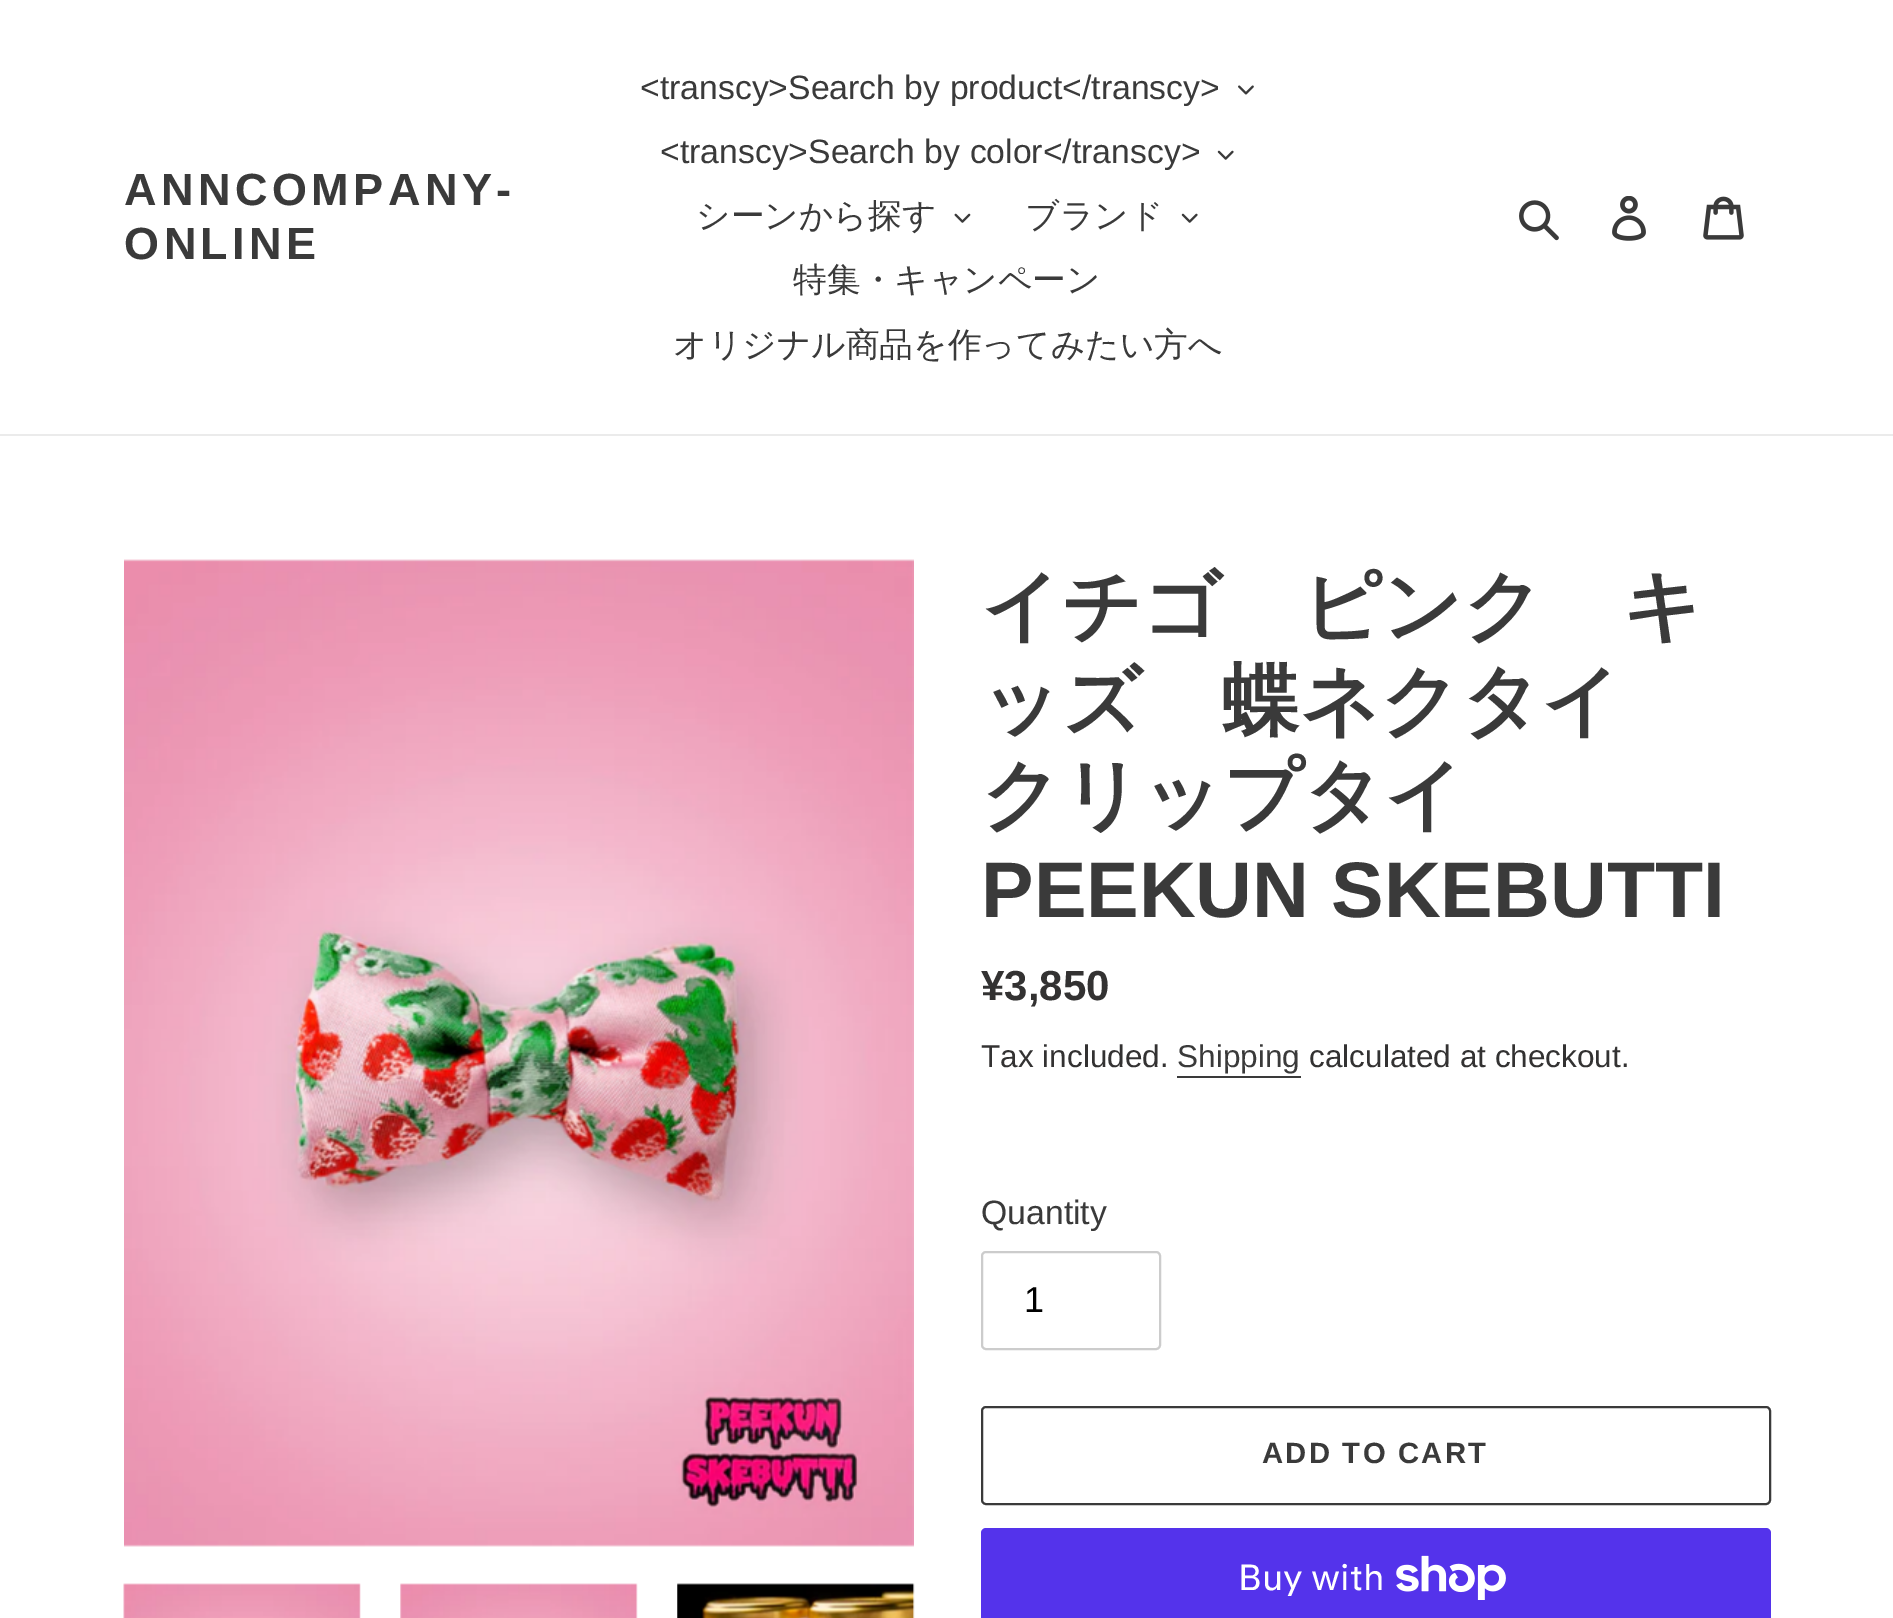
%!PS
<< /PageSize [1893 1618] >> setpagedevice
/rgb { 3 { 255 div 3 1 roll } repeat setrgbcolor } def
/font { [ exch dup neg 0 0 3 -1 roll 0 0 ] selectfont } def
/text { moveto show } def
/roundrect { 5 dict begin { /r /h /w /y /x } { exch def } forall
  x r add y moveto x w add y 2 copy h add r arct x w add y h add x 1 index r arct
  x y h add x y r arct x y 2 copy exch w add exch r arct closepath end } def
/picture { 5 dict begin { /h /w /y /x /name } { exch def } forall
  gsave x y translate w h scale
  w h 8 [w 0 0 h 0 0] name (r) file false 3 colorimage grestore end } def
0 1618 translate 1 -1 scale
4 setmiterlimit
255 255 255 rgb
0 0 1893 1618 rectfill
235 235 235 rgb
0 434 1893 2 rectfill
(img_01.rgb) 1238 85 16 10 picture
(img_02.rgb) 1217 150 17 10 picture
(img_03.rgb) 954 213 17 10 picture
(img_02.rgb) 1181 213 17 10 picture
(img_04.rgb) 1519 200 40 41 picture
(img_05.rgb) 1612 196 34 45 picture
(img_06.rgb) 1703 196 41 44 picture
244 244 244 rgb
124 560 790 986 rectfill
(img_07.rgb) 124 559 790 988 picture
(img_08.rgb) 123 1583 238 35 picture
(img_09.rgb) 400 1583 238 35 picture
(img_10.rgb) 677 1583 238 35 picture
58 58 58 rgb
1177 1076 124 2 rectfill
204 204 204 rgb
2 setlinewidth
982 1252 178 97 4 roundrect stroke
58 58 58 rgb
982 1407 788 97 4 roundrect stroke
84 51 235 rgb
981 1528 790 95 5 roundrect fill
(img_11.rgb) 1396 1555 110 45 picture
/LiberationSans-Bold 45 font
58 58 58 rgb
124 205 moveto 4.5 0 (ANNCOMPANY-) ashow
124 259 moveto 4.5 0 (ONLINE) ashow
/LiberationSans-Regular 33.75 font
(<transcy>Search by product</transcy>) 640 99 text
(<transcy>Search by color</transcy>) 660 163 text
/WenQuanYiZenHei-Medium 33.75 font
(シーンから探す) 696 227 text
(ブランド) 1025 227 text
(特集・キャンペーン) 793 291 text
(オリジナル商品を作ってみたい方へ) 673 356 text
/WenQuanYiZenHei-Bold 78.75 font
(イチゴ　ピンク　キ) 981 633 text
(ッズ　蝶ネクタイ) 981 728 text
(クリップタイ) 981 822 text
/LiberationSans-Bold 78.75 font
(PEEKUN SKEBUTTI) 981 917 text
/LiberationSans-Bold 42 font
51 50 50 rgb
(¥3,850) 981 1000 text
/LiberationSans-Regular 31.5 font
(Tax included.) 981 1067 text
58 58 58 rgb
(Shipping) 1177 1067 text
51 50 50 rgb
(calculated at checkout.) 1309 1067 text
/LiberationSans-Regular 33.75 font
58 58 58 rgb
(Quantity) 981 1224 text
/LiberationSans-Regular 36 font
0 0 0 rgb
(1) 1024 1312 text
/LiberationSans-Bold 29.25 font
58 58 58 rgb
1262 1463 moveto 2.25 0 (ADD TO CART) ashow
/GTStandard-Regular 36 font
255 255 255 rgb
(Buy with) 1238 1590 text
showpage
